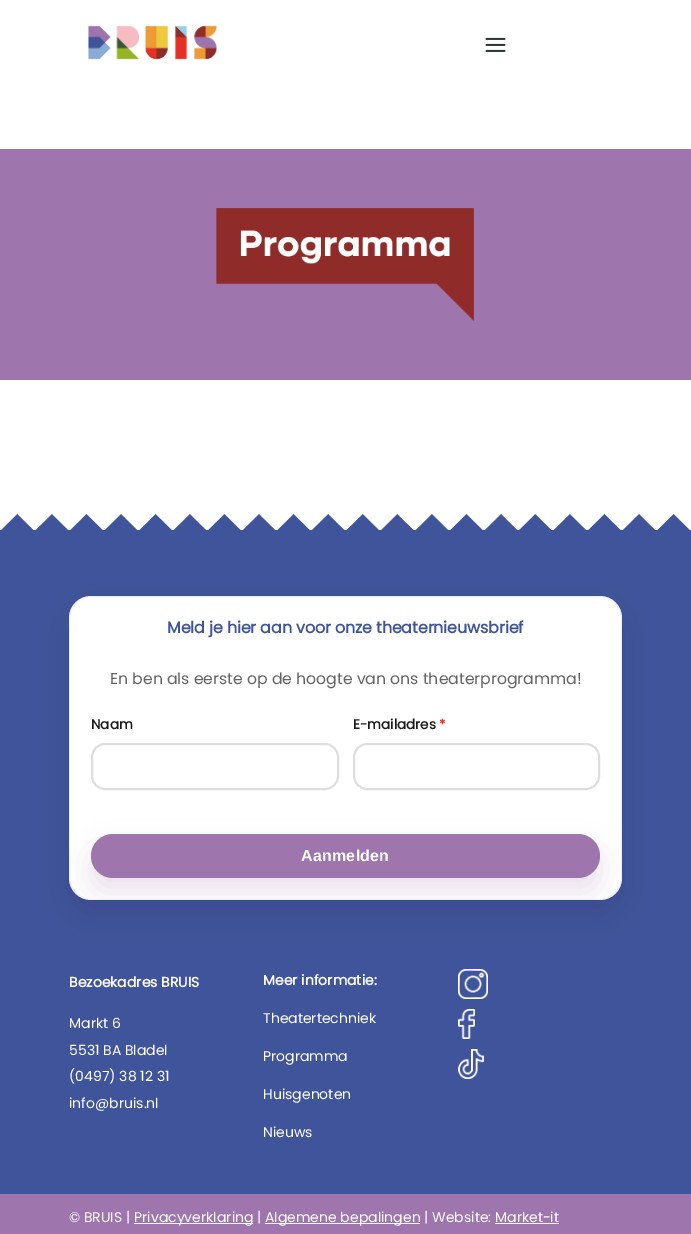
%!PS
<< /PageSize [691 1234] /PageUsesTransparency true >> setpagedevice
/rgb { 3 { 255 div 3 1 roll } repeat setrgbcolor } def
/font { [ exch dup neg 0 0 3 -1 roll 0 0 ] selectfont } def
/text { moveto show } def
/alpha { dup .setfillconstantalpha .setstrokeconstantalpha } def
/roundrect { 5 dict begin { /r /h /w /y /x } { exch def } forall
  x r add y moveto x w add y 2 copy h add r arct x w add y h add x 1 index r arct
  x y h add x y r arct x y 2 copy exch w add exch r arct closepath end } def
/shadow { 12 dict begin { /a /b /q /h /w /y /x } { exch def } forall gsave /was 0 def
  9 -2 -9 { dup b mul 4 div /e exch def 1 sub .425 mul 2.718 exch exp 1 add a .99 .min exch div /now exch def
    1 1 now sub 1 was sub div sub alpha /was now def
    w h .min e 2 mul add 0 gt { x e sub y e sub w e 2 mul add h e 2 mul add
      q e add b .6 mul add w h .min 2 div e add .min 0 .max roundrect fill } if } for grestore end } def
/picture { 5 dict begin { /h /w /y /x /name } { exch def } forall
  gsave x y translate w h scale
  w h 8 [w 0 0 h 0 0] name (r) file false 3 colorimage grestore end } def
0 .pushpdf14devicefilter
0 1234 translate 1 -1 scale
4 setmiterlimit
255 255 255 rgb
0 0 691 1234 rectfill
(img_01.rgb) 88 25 130 35 picture
(img_02.rgb) 485 37 21 15 picture
158 117 172 rgb
0 149 691 231 rectfill
(img_03.rgb) 216 208 258 113 picture
(img_04.rgb) 1 514 689 16 picture
64 84 156 rgb
0 530 691 664 rectfill
0 0 0 rgb
69 610 553 304 22 17 0.1 shadow
255 255 255 rgb
69 596 553 304 22 roundrect fill
0.08 alpha
27 27 27 rgb
69.5 596.5 552 303 21.5 roundrect stroke
1 alpha
223 223 223 rgb
2 setlinewidth
92 744 246 45 13 roundrect stroke
354 744 245 45 13 roundrect stroke
gsave
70 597 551 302 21 roundrect clip newpath
158 117 172 rgb
91 848 509 44 22 13 0.22 shadow
grestore
158 117 172 rgb
91 834 509 44 22 roundrect fill
(img_05.rgb) 458 969 30 30 picture
(img_06.rgb) 458 1009 17 30 picture
(img_07.rgb) 458 1049 26 30 picture
0 1194 691 40 rectfill
250 250 250 rgb
134 1223 119 1 rectfill
265 1223 155 1 rectfill
/Poppins-Bold 16 font
64 84 156 rgb
167 633 moveto -0.15 0 (Meld je hier aan voor onze theaternieuwsbrief) ashow
/Poppins-Regular 15.7 font
100 100 100 rgb
(En ben als eerste op de hoogte van ons theaterprogramma!) 110 684 text
/Poppins-Bold 13.5 font
27 27 27 rgb
(Naam) 91 729 text
(E-mailadres) 353 729 text
228 48 36 rgb
(*) 439 729 text
/LiberationSans-Bold 16 font
255 255 255 rgb
301 861 moveto 0.25 0 (Aanmelden) ashow
/Poppins-Bold 14 font
(Bezoekadres BRUIS) 69 987 text
/Poppins-Regular 14 font
(Markt 6) 69 1028 text
(5531 BA Bladel) 69 1055 text
(\(0497\) 38 12 31) 69 1081 text
(info@bruis.nl) 69 1108 text
/Poppins-Bold 14 font
(Meer informatie:) 263 985 text
/Poppins-Regular 14 font
(Theatertechniek) 263 1023 text
(Programma) 263 1061 text
(Huisgenoten) 263 1099 text
(Nieuws) 263 1137 text
(© BRUIS |) 69 1222 text
(Privacyverklaring |) 134 1222 text
(Algemene bepalingen | Website: Market-it) 265 1222 text
250 250 250 rgb
495 1223 64 1 rectfill
.poppdf14devicefilter showpage
